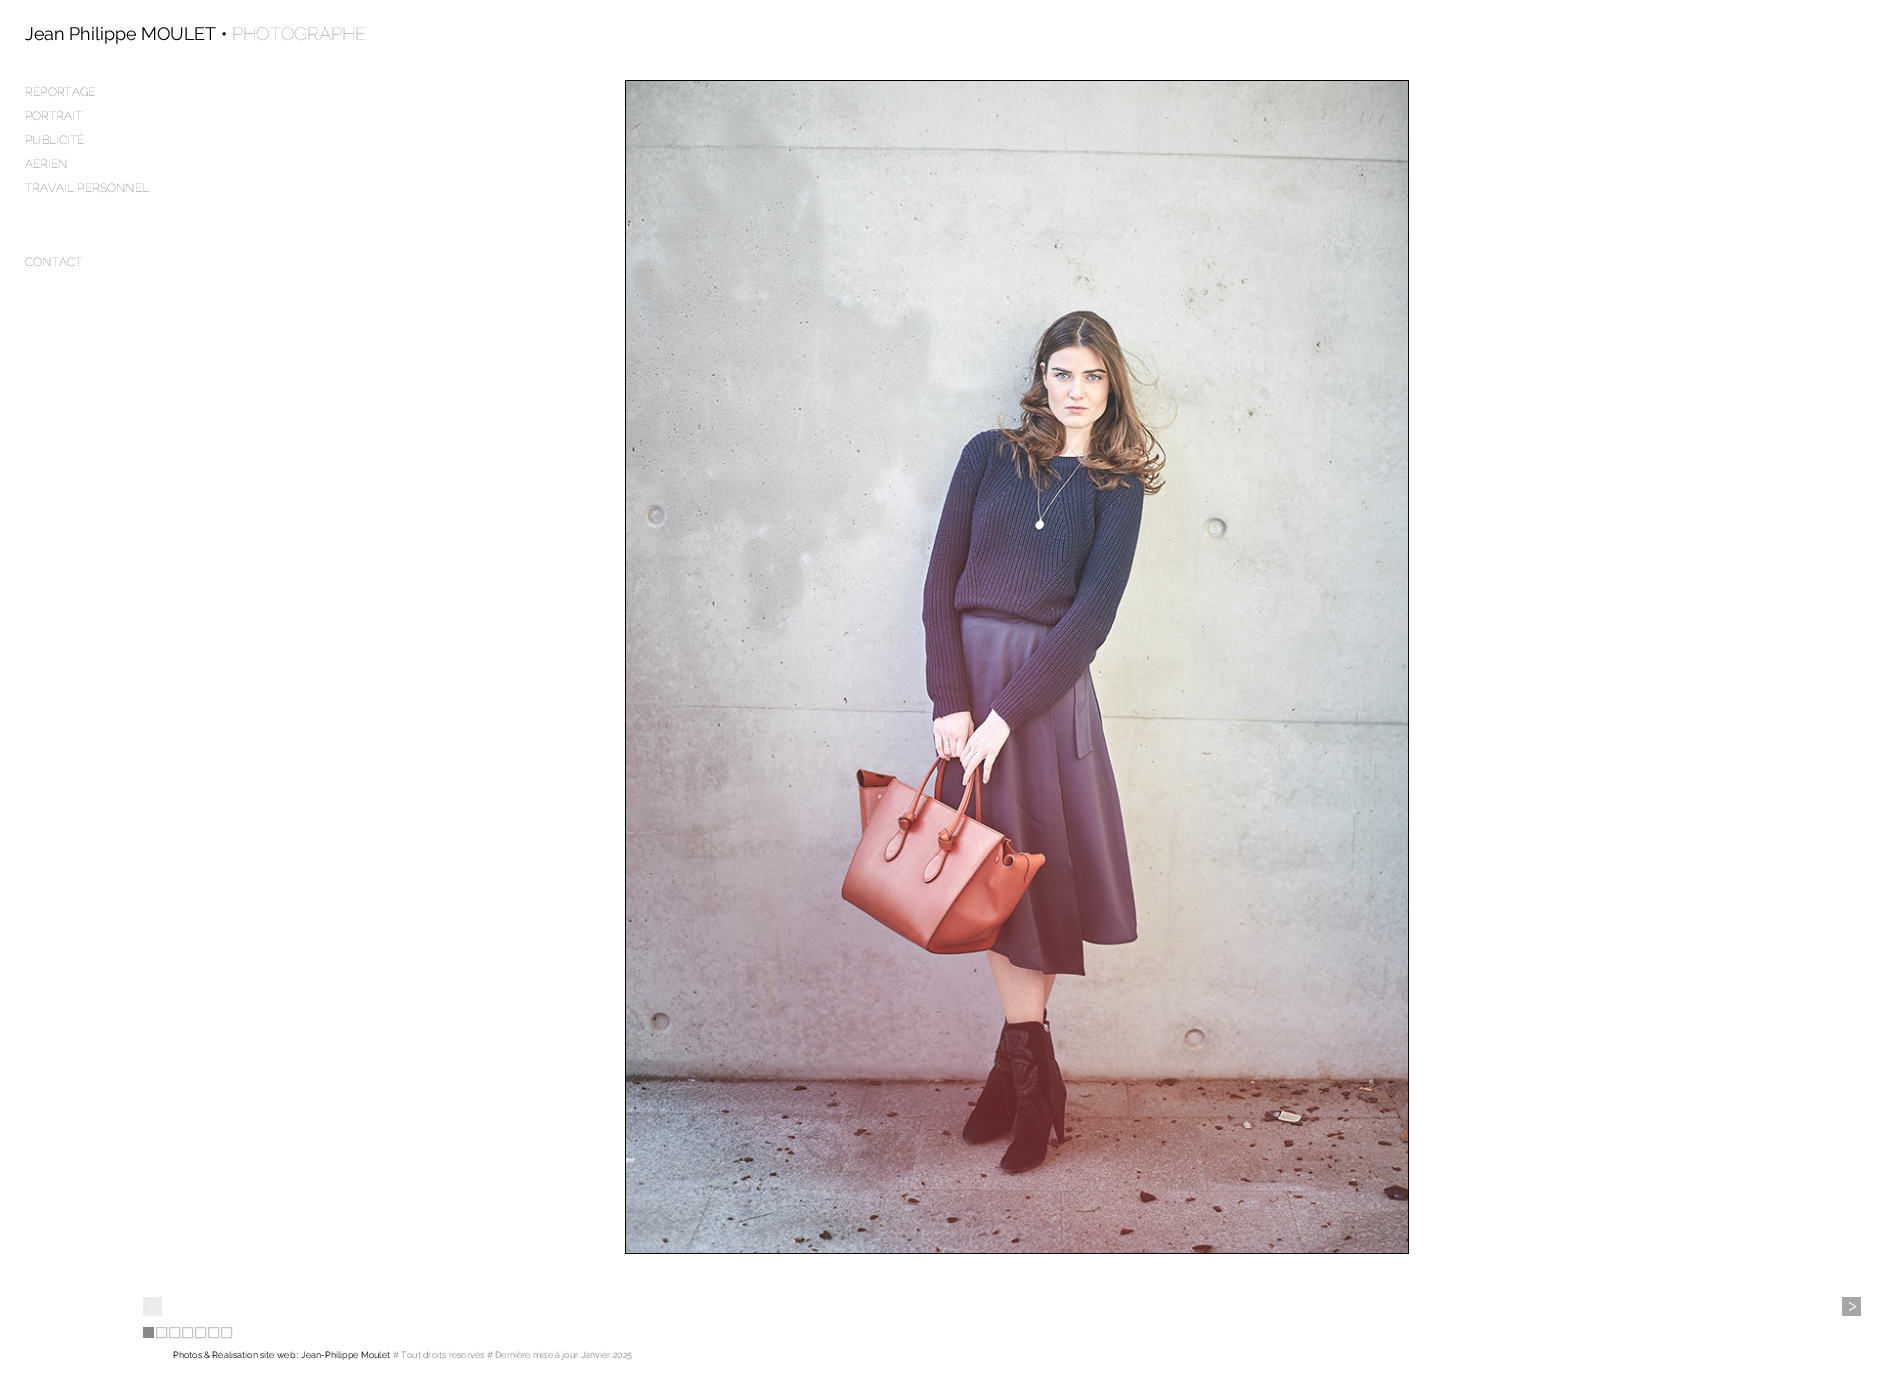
%!PS
<< /PageSize [1886 1391] >> setpagedevice
/rgb { 3 { 255 div 3 1 roll } repeat setrgbcolor } def
/font { [ exch dup neg 0 0 3 -1 roll 0 0 ] selectfont } def
/text { moveto show } def
/picture { 5 dict begin { /h /w /y /x /name } { exch def } forall
  gsave x y translate w h scale
  w h 8 [w 0 0 h 0 0] name (r) file false 3 colorimage grestore end } def
0 1391 translate 1 -1 scale
4 setmiterlimit
255 255 255 rgb
0 0 1886 1391 rectfill
(img_01.rgb) 625 80 784 1174 picture
236 236 236 rgb
143 1297 19 19 rectfill
(img_02.rgb) 149 1302 7 9 picture
166 166 166 rgb
1842 1297 19 19 rectfill
(img_03.rgb) 1849 1302 8 10 picture
136 136 136 rgb
143 1327 11 11 rectfill
196 196 196 rgb
156.5 1327.5 10 10 rectstroke
169.5 1327.5 10 10 rectstroke
182.5 1327.5 10 10 rectstroke
195.5 1327.5 10 10 rectstroke
208.5 1327.5 10 10 rectstroke
221.5 1327.5 10 10 rectstroke
/Raleway-Regular 18 font
0 0 0 rgb
(Jean Philippe MOULET •) 25 40 text
/Raleway-Thin 18 font
136 136 136 rgb
(PHOTOGRAPHE) 232 40 text
/Raleway-ExtraLight 12 font
(REPORTAGE) 25 96 text
(PORTRAIT) 25 120 text
(PUBLICITÉ) 25 144 text
(AERIEN) 25 168 text
(TRAVAIL PERSONNEL) 25 192 text
(CONTACT) 25 266 text
/Raleway-Regular 9 font
0 0 0 rgb
(Photos & Réalisation site web : Jean-Philippe Moulet) 173 1358 text
136 136 136 rgb
(# Tout droits réservés # Dernière mise à jour Janvier 2025) 393 1358 text
showpage
